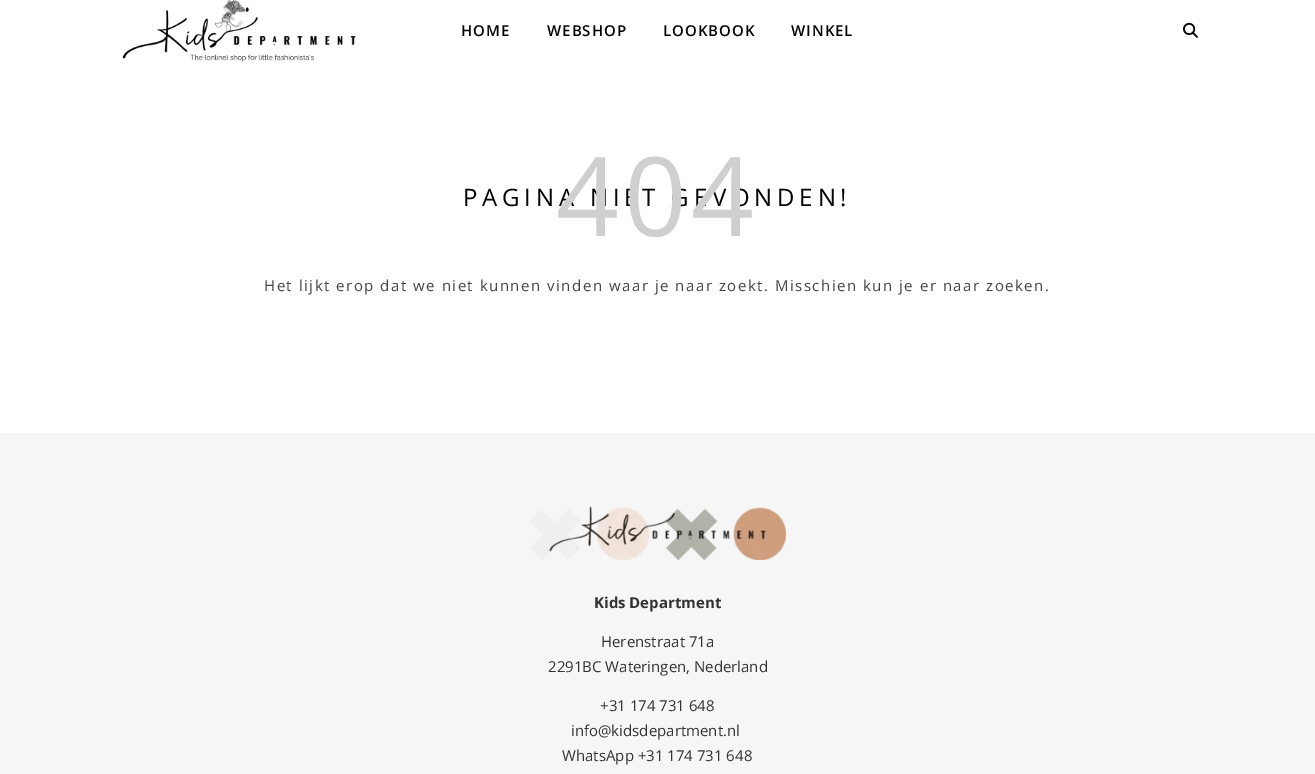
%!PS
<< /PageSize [1315 774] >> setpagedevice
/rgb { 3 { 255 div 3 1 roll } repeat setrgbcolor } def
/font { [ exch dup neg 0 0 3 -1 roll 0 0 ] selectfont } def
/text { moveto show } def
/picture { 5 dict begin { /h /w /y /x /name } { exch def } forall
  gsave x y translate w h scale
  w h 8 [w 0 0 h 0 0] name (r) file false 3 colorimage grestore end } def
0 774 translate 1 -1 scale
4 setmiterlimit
255 255 255 rgb
0 0 1315 774 rectfill
(img_01.rgb) 122 0 234 62 picture
(img_02.rgb) 1183 22 15 16 picture
246 246 246 rgb
0 433 1315 341 rectfill
(img_03.rgb) 530 506 256 54 picture
/OpenSans-SemiBold 15 font
3 3 3 rgb
461 36 moveto 1 0 (HOME) ashow
547 36 moveto 1 0 (WEBSHOP) ashow
663 36 moveto 1 0 (LOOKBOOK) ashow
791 36 moveto 1 0 (WINKEL) ashow
/OpenSans-Regular 24 font
463 206 moveto 4.8 0 (PAGINA NIET GEVONDEN!) ashow
/OpenSans-Regular 110 font
207 207 207 rgb
556 236 moveto 4.8 0 (404) ashow
/OpenSans-Regular 15 font
70 70 70 rgb
264 291 moveto 1.5 0 (Het lijkt erop dat we niet kunnen vinden waar je naar zoekt. Misschien kun je er naar zoeken.) ashow
/OpenSans-Bold 15 font
51 51 51 rgb
(Kids Department) 594 608 text
/OpenSans-Regular 15 font
(Herenstraat 71a) 601 647 text
(2291BC Wateringen, Nederland) 548 672 text
(+31 174 731 648) 600 711 text
(info@kidsdepartment.nl) 571 736 text
(WhatsApp +31 174 731 648) 562 761 text
showpage
